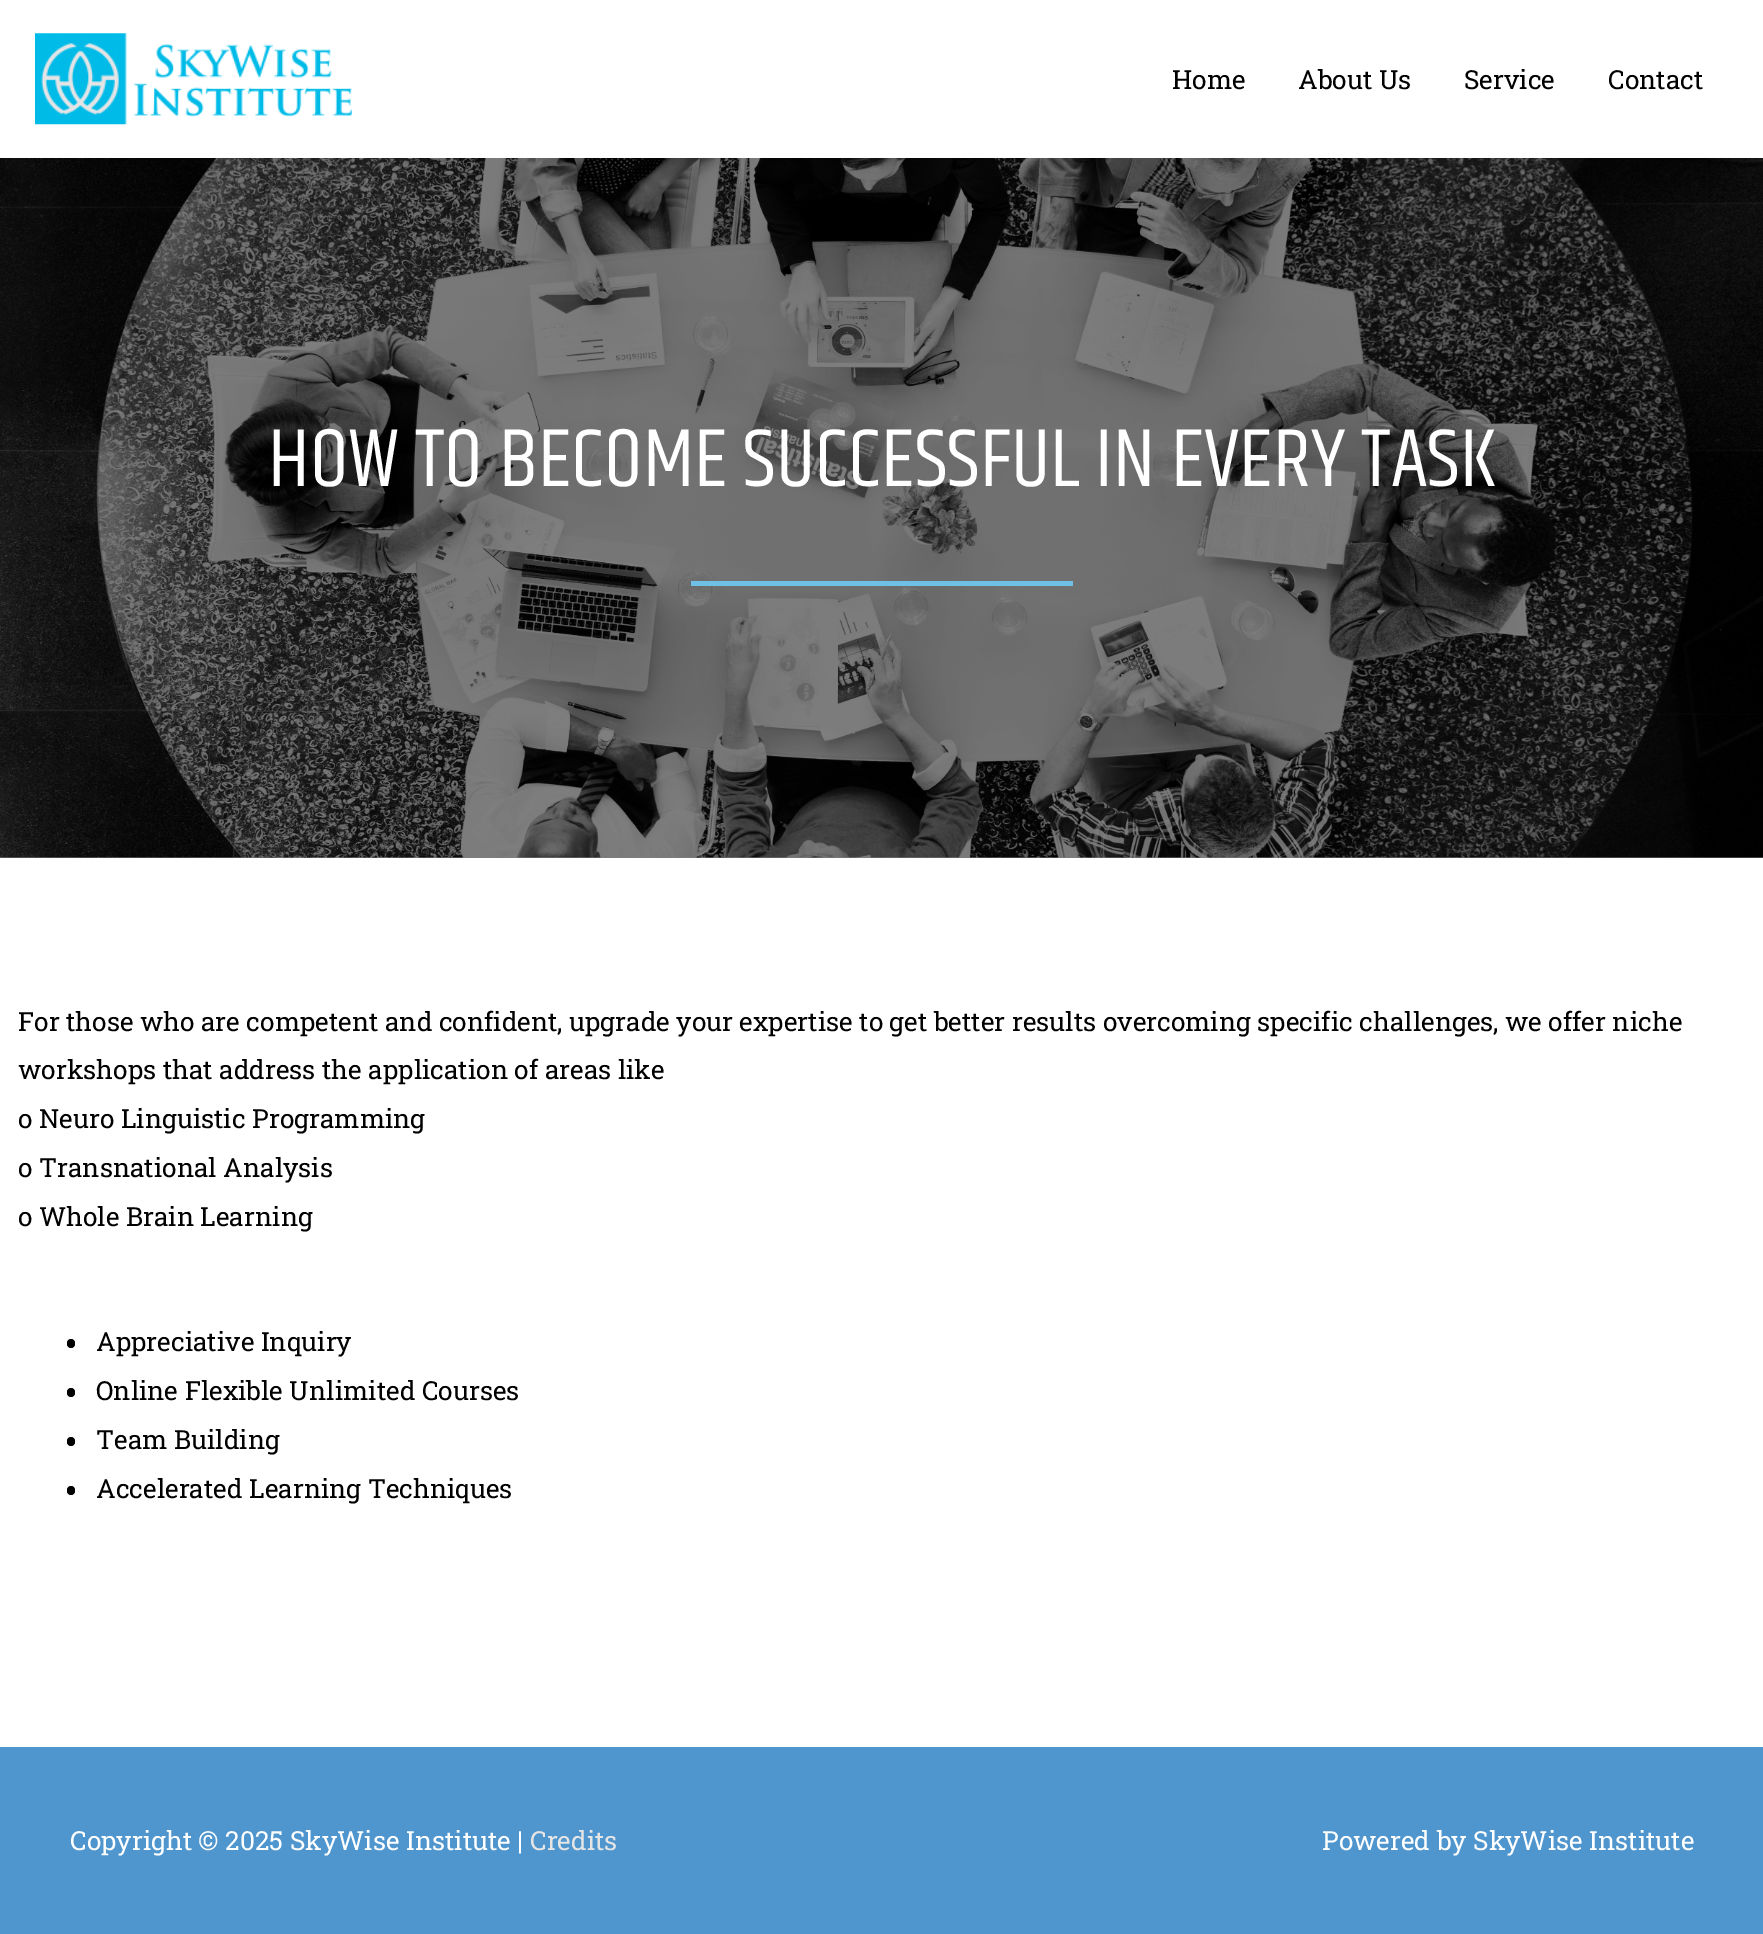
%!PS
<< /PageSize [1763 1934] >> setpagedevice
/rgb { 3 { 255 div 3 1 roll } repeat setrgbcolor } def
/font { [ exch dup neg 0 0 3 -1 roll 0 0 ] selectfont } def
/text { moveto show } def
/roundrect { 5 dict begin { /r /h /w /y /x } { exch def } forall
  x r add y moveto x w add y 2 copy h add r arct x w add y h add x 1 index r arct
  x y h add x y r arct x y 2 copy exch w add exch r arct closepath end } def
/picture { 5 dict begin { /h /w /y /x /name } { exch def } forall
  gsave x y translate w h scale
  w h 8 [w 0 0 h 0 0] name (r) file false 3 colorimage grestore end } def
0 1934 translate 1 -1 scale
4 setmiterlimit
255 255 255 rgb
0 0 1763 1934 rectfill
128 128 128 rgb
0 857 1763 1 rectfill
(img_01.rgb) 35 33 317 92 picture
(img_02.rgb) 0 158 1763 700 picture
110 193 228 rgb
691 581 382 5 rectfill
0 0 0 rgb
67 1339 8 9 4 roundrect fill
67 1388 8 9 4 roundrect fill
67 1437 8 9 4 roundrect fill
67 1486 8 9 4 roundrect fill
79 150 206 rgb
0 1747 1763 187 rectfill
/RobotoSlab-Regular 26.25 font
0 0 0 rgb
(Home) 1172 89 text
(About Us) 1298 89 text
(Service) 1464 89 text
(Contact) 1608 89 text
/Khand-Regular 84 font
255 255 255 rgb
(HOW TO BECOME SUCCESSFUL IN EVERY TASK) 268 486 text
/RobotoSlab-Regular 26.25 font
0 0 0 rgb
(For those who are competent and confident, upgrade your expertise to get better results overcoming specific challenges, we offer niche) 18 1031 text
(workshops that address the application of areas like) 18 1079 text
(o Neuro Linguistic Programming) 18 1128 text
(o Transnational Analysis) 18 1177 text
(o Whole Brain Learning) 18 1226 text
(Appreciative Inquiry) 96 1351 text
(Online Flexible Unlimited Courses) 96 1400 text
(Team Building) 96 1449 text
(Accelerated Learning Techniques) 96 1498 text
255 255 255 rgb
(Copyright © 2025 SkyWise Institute |) 70 1850 text
229 229 229 rgb
(Credits) 530 1850 text
255 255 255 rgb
(Powered by SkyWise Institute) 1322 1850 text
showpage
